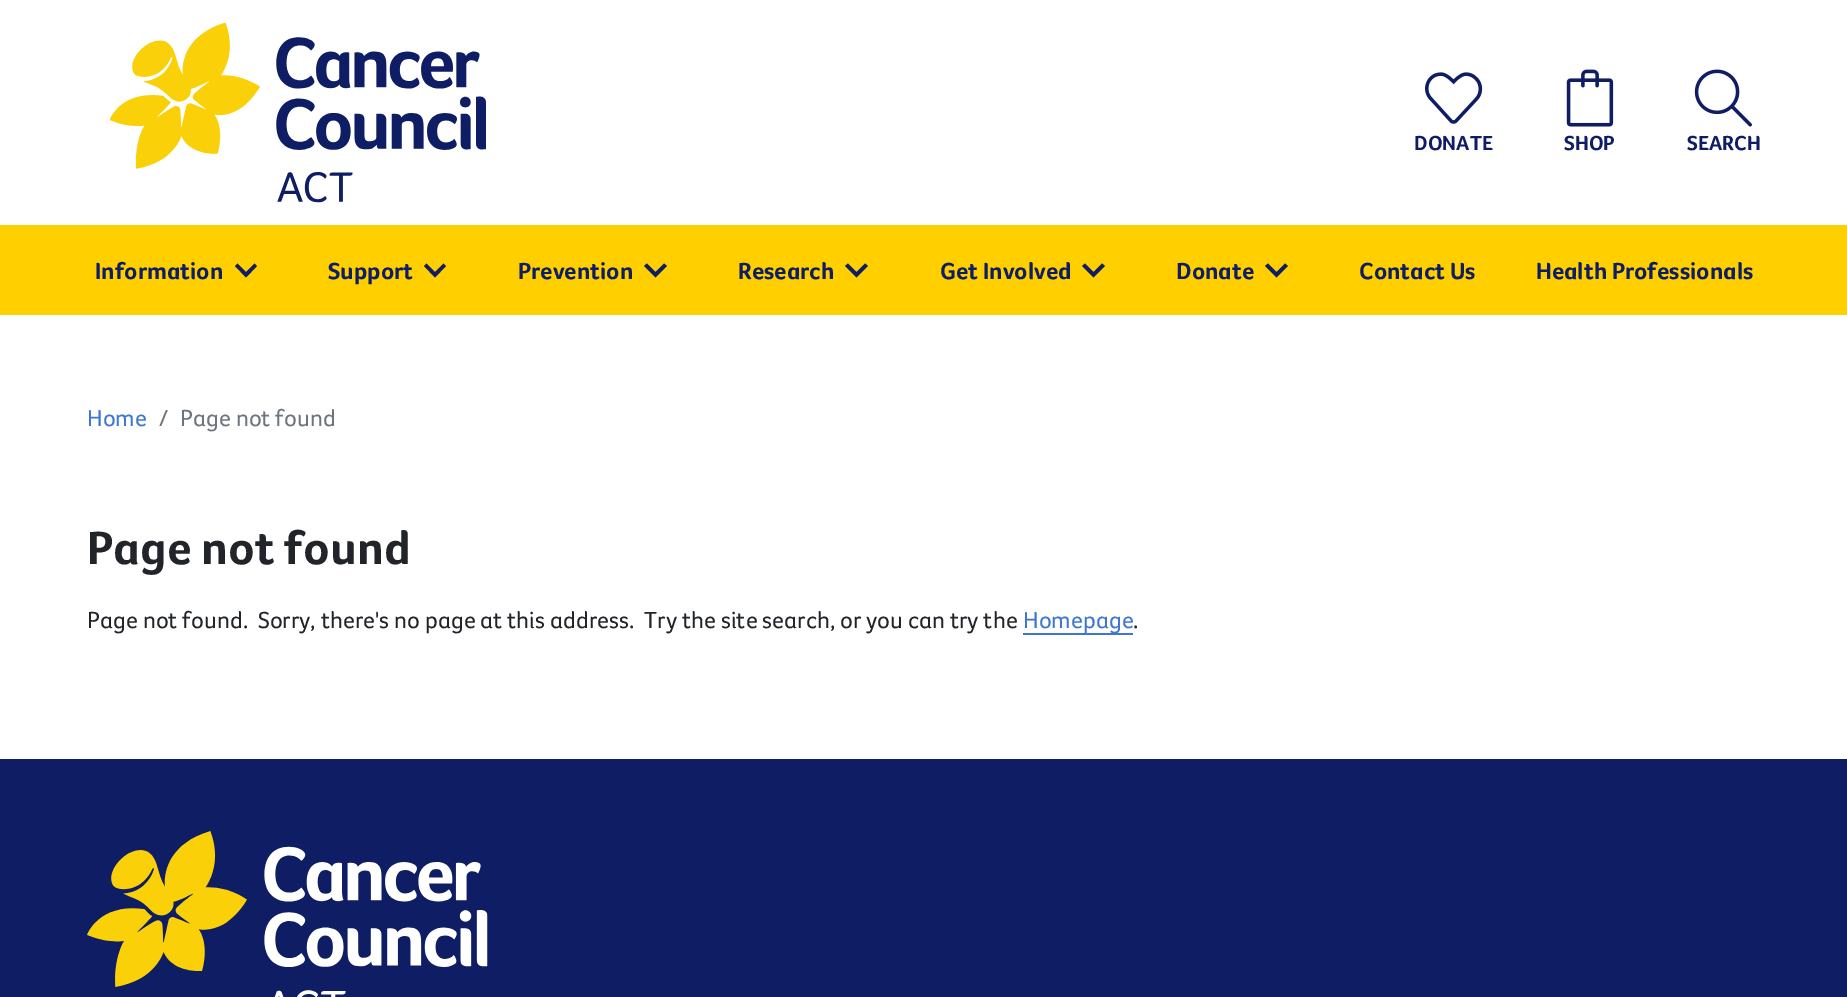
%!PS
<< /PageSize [1847 997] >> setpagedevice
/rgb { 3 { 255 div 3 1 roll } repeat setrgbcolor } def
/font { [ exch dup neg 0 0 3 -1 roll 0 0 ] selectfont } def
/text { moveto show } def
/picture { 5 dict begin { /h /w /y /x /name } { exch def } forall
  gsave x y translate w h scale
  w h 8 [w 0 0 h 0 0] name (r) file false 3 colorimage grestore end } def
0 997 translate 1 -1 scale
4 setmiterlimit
255 255 255 rgb
0 0 1847 997 rectfill
(img_01.rgb) 110 23 376 180 picture
(img_02.rgb) 1425 72 58 52 picture
(img_03.rgb) 1566 69 48 58 picture
(img_04.rgb) 1694 69 58 58 picture
255 207 0 rgb
0 225 1847 90 rectfill
15 30 100 rgb
254.5 263.5 moveto 2.5 2.5 rlineto -11 11.5 rlineto -11 -11.5 rlineto 2.5 -2.5 rlineto 8.5 8.5 rlineto closepath fill
443.5 263.5 moveto 2.5 2.5 rlineto -11 11.5 rlineto -11 -11.5 rlineto 2.5 -2.5 rlineto 8.5 8.5 rlineto closepath fill
664 263.5 moveto 3 2.5 rlineto -11.5 11.5 rlineto -11.5 -11.5 rlineto 3 -2.5 rlineto 8.5 8.5 rlineto closepath fill
865 263.5 moveto 3 2.5 rlineto -11.5 11.5 rlineto -11.5 -11.5 rlineto 3 -2.5 rlineto 8.5 8.5 rlineto closepath fill
1102 263.5 moveto 3 2.5 rlineto -11.5 11.5 rlineto -11.5 -11.5 rlineto 3 -2.5 rlineto 8.5 8.5 rlineto closepath fill
1285 263.5 moveto 3 2.5 rlineto -11.5 11.5 rlineto -11.5 -11.5 rlineto 3 -2.5 rlineto 8.5 8.5 rlineto closepath fill
62 118 211 rgb
1023 633 110 2 rectfill
15 30 100 rgb
0 759 1847 238 rectfill
(img_05.rgb) 87 831 401 166 picture
/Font-Bold 21 font
(DONATE) 1414 150 text
(SHOP) 1564 150 text
(SEARCH) 1687 150 text
/Font-Bold 24 font
(Information) 95 279 text
(Support) 328 279 text
(Prevention) 518 279 text
(Research) 738 279 text
(Get Involved) 940 279 text
(Donate) 1176 279 text
(Contact Us) 1359 279 text
(Health Professionals) 1536 279 text
/Font-Regular 24 font
62 118 211 rgb
(Home) 87 426 text
108 117 125 rgb
(/) 159 426 text
(Page not found) 180 426 text
/Font-Bold 48 font
33 37 41 rgb
(Page not found) 87 564 text
/Font-Regular 24 font
(Page not found.  Sorry, there's no page at this address.  Try the site search, or you can try the) 87 628 text
62 118 211 rgb
(Homepage) 1023 628 text
33 37 41 rgb
(.) 1133 628 text
showpage
